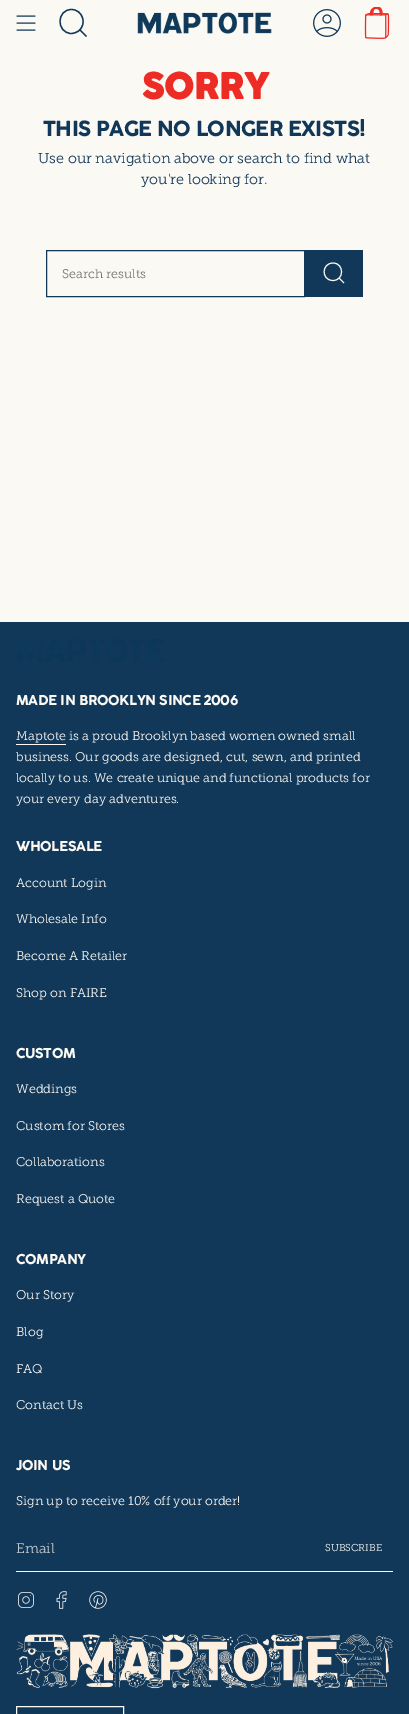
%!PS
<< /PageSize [409 1714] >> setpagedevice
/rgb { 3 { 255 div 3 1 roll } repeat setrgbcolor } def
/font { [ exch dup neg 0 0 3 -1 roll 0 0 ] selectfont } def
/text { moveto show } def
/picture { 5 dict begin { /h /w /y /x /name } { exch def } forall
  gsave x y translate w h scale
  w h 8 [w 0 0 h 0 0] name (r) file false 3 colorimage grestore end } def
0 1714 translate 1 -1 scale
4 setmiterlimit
251 249 243 rgb
0 0 409 1714 rectfill
18 56 89 rgb
1 setlinecap
1 setlinejoin
17 16 moveto 18 0 rlineto 17 23 moveto 18 0 rlineto 17 30 moveto 18 0 rlineto stroke
1.3 setlinewidth
0 setlinecap
0 setlinejoin
71.5 9.5 moveto 11 0 16 14.5 7 21.5 rcurveto -2 1.5 -5 2.5 -7.5 2.5 rcurveto -15 -1 -14.5 -24 0.5 -24 rcurveto closepath 80 30 moveto 6.5 6.5 rlineto stroke
(img_01.rgb) 137 12 135 22 picture
(img_02.rgb) 313 9 28 28 picture
(img_03.rgb) 364 7 26 32 picture
1 setlinewidth
46.5 250.5 258 46 rectstroke
305 250 58 47 rectfill
251 249 243 rgb
333 263 moveto 11.5 0 11.5 18 -0.5 17.5 rcurveto -11.5 -0.5 -11 -17.5 0.5 -17.5 rcurveto closepath 339 278 moveto 5 5 rlineto stroke
18 56 89 rgb
0 622 409 1092 rectfill
(img_04.rgb) 17 639 148 23 picture
251 249 243 rgb
16 744 50 1 rectfill
16 1571 377 1 rectfill
(img_05.rgb) 18 1592 16 16 picture
(img_06.rgb) 56 1591 11 18 picture
(img_07.rgb) 89 1591 18 18 picture
(img_08.rgb) 16 1634 377 55 picture
16.5 1706.5 107 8 rectstroke
/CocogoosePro-Bold 37 font
237 44 38 rgb
(SORRY) 142 99 text
/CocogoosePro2-Bold 21 font
18 56 89 rgb
(THIS PAGE NO LONGER EXISTS!) 43 136 text
/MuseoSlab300-Light 14.4 font
(Use our navigation above or search to find what) 38 163 text
(you're looking for.) 141 184 text
/MuseoSlab300-Light 12.6 font
117 117 117 rgb
(Search results) 62 278 text
/CocogoosePro2-Bold 13.75 font
251 249 243 rgb
(MADE IN BROOKLYN SINCE 2006) 16 705 text
/MuseoSlab300-Light 12.6 font
(Maptote is a proud Brooklyn based women owned small) 16 740 text
(business. Our goods are designed, cut, sewn, and printed) 16 761 text
(locally to us. We create unique and functional products for) 16 782 text
(your every day adventures.) 16 803 text
/CocogoosePro2-Bold 13.75 font
(WHOLESALE) 16 851 text
/MuseoSlab300-Light 12.6 font
(Account Login) 16 887 text
(Wholesale Info) 16 923 text
(Become A Retailer) 16 960 text
(Shop on FAIRE) 16 997 text
/CocogoosePro2-Bold 13.75 font
(CUSTOM) 16 1058 text
/MuseoSlab300-Light 12.6 font
(Weddings) 16 1093 text
(Custom for Stores) 16 1130 text
(Collaborations) 16 1166 text
(Request a Quote) 16 1203 text
/CocogoosePro2-Bold 13.75 font
(COMPANY) 16 1264 text
/MuseoSlab300-Light 12.6 font
(Our Story) 16 1299 text
(Blog) 16 1336 text
(FAQ) 16 1373 text
(Contact Us) 16 1409 text
/CocogoosePro2-Bold 13.75 font
(JOIN US) 16 1470 text
/MuseoSlab300-Light 12.6 font
(Sign up to receive 10% off your order!) 16 1505 text
/MuseoSlab300-Light 14 font
193 201 205 rgb
(Email) 16 1553 text
/MuseoSlab300-Light 10 font
251 249 243 rgb
(SUBSCRIBE) 325 1551 text
showpage
